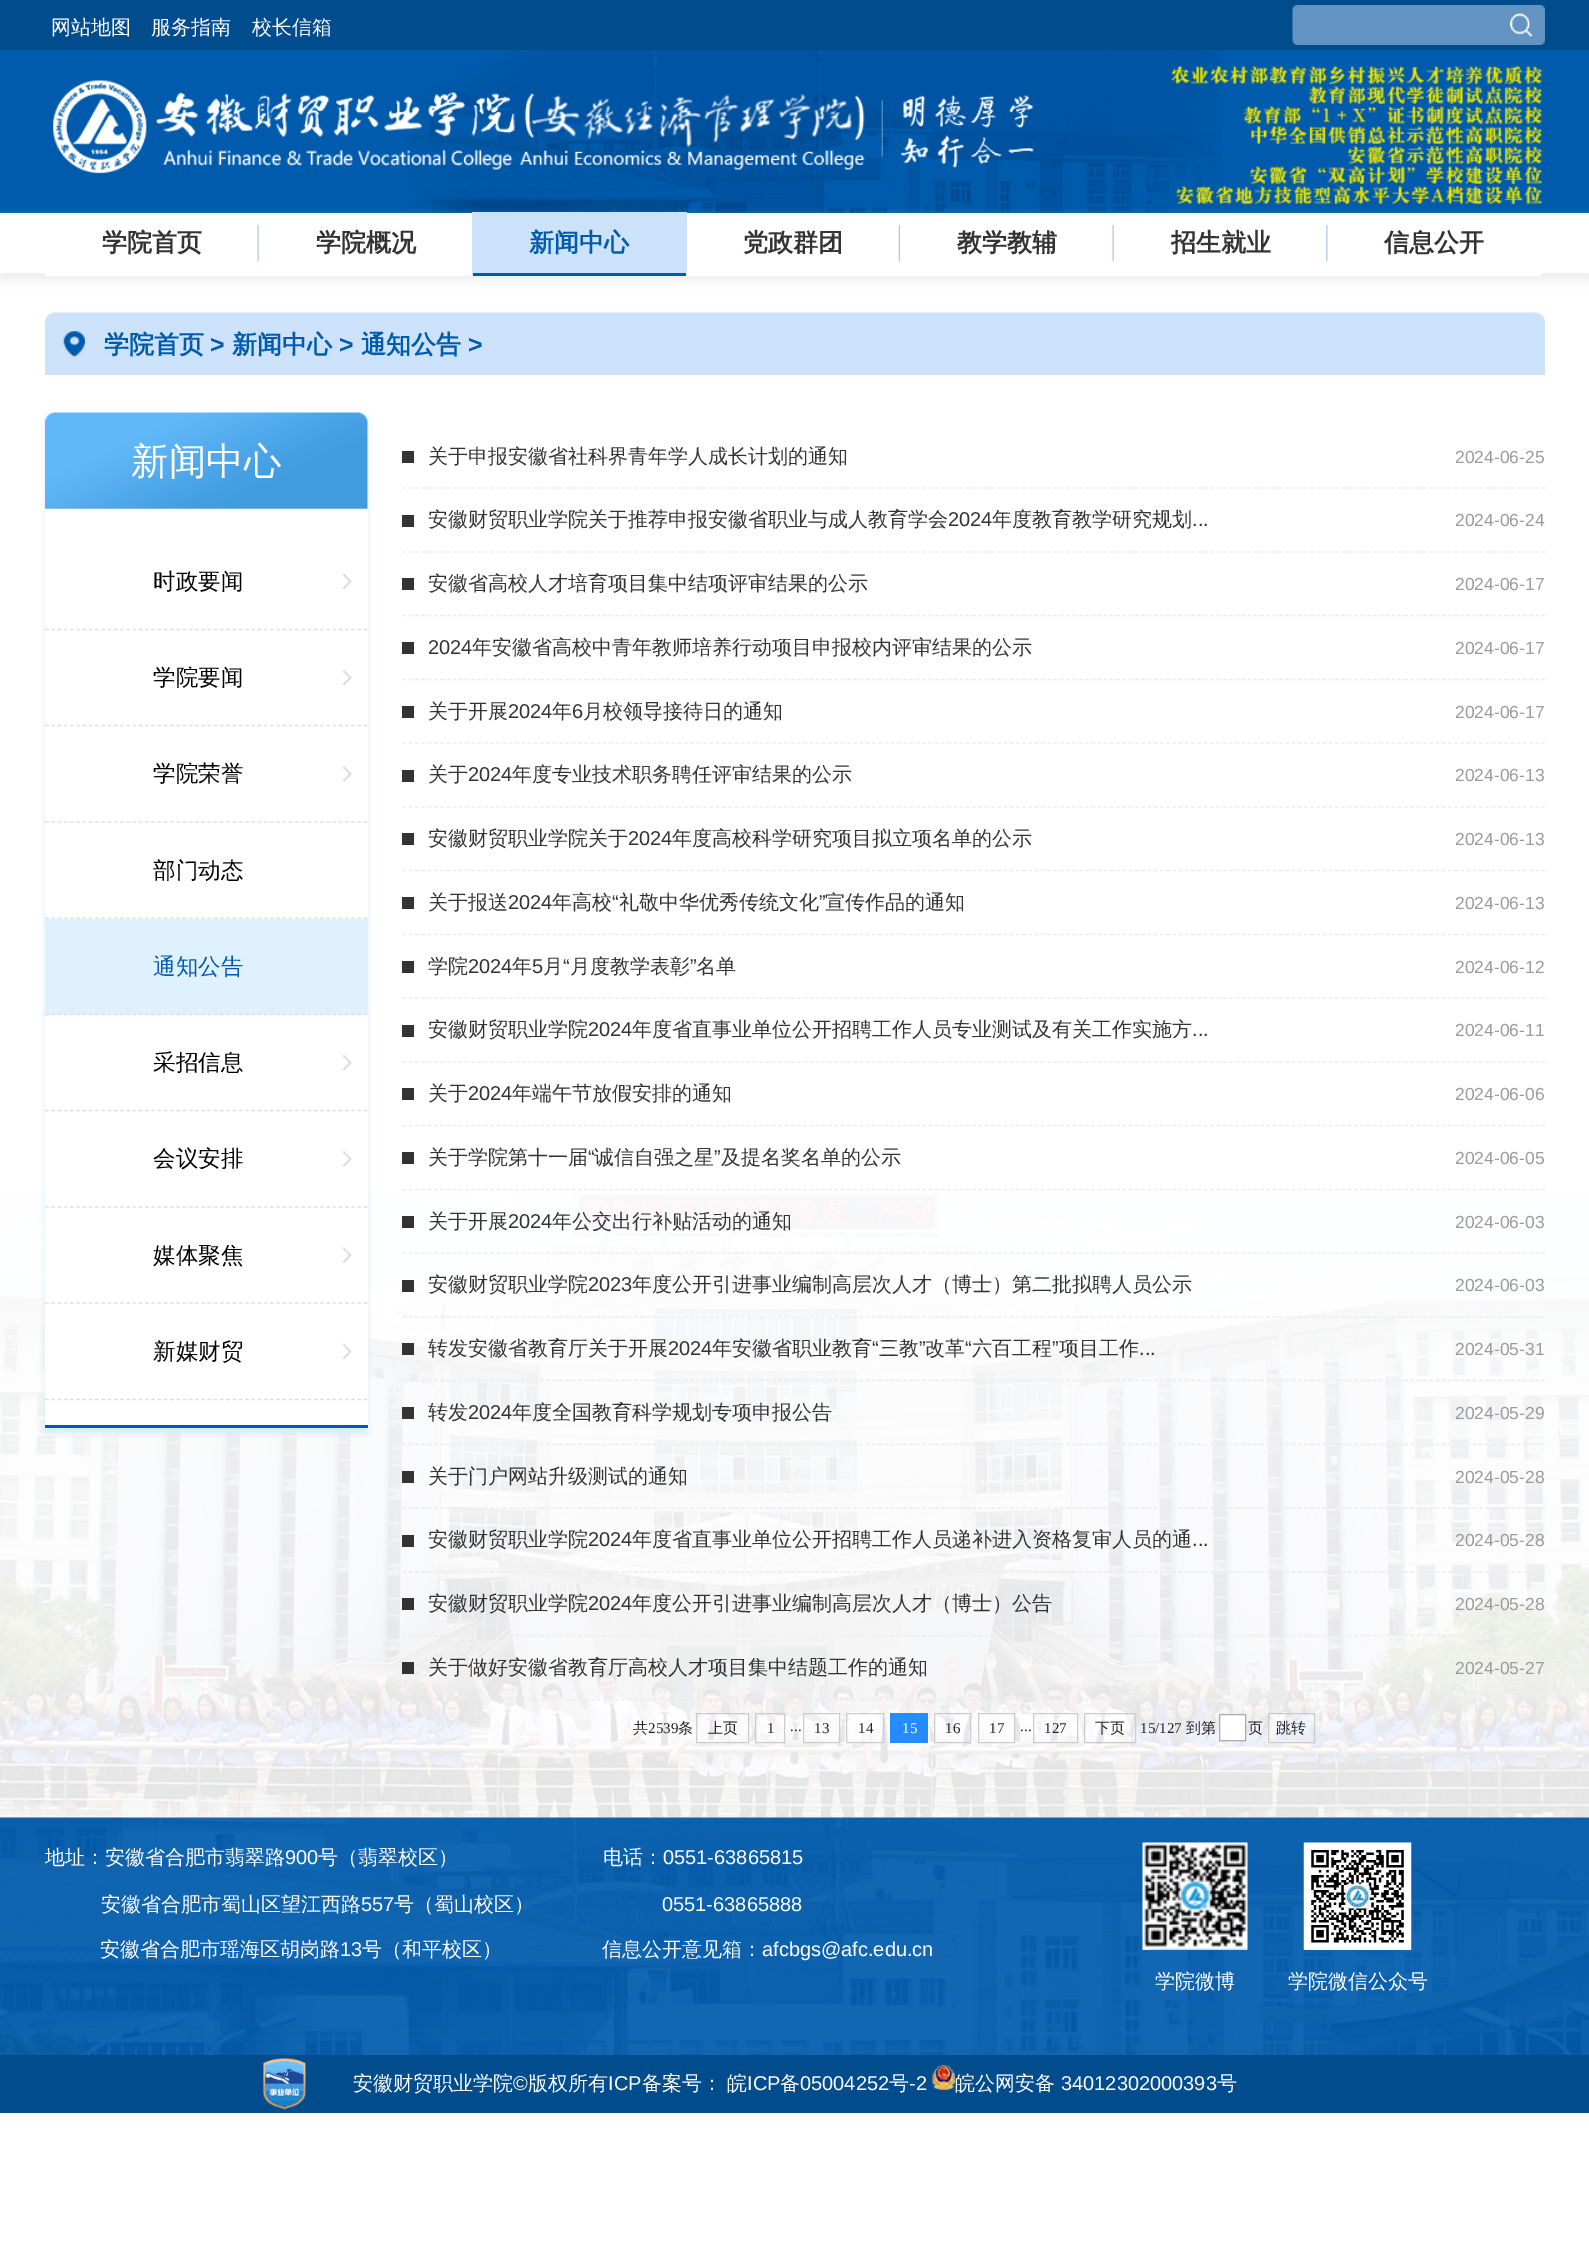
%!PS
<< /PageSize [1589 2268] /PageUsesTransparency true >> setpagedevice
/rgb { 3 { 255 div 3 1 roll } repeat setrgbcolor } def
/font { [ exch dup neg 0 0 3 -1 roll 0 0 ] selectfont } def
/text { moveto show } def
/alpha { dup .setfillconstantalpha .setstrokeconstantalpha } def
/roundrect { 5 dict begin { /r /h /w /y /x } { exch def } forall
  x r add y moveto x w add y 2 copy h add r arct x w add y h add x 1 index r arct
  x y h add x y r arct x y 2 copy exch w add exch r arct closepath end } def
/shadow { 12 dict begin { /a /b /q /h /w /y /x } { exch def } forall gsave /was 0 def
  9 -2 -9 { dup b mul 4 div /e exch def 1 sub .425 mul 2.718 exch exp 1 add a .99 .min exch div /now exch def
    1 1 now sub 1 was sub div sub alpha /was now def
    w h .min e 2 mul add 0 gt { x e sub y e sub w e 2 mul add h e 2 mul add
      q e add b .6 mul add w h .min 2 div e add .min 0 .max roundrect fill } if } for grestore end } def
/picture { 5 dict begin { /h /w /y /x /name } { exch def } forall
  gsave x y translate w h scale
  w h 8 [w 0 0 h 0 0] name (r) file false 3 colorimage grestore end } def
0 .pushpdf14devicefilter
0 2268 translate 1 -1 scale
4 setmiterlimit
255 255 255 rgb
0 0 1589 2268 rectfill
(img_01.rgb) 0 1193 1589 625 picture
1 76 141 rgb
0 0 1589 50 rectfill
(img_02.rgb) 1292 5 253 40 picture
(img_03.rgb) 1510 13 23 24 picture
0 91 172 rgb
0 50 1589 163 rectfill
(img_04.rgb) 407 50 815 163 picture
(img_05.rgb) 53 80 981 94 picture
237 237 237 rgb
0 220 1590 60 0 5 1 shadow
(img_06.rgb) 1171 66 372 139 picture
255 255 255 rgb
0 215 1589 58 rectfill
(img_07.rgb) 257 225 2 37 picture
45 273 428 3 rectfill
204 225 250 rgb
472 212 215 63 rectfill
0 91 172 rgb
473 273 213 3 rectfill
(img_08.rgb) 898 225 2 37 picture
255 255 255 rgb
686 273 855 3 rectfill
(img_07.rgb) 1112 225 2 37 picture
(img_09.rgb) 1326 225 2 37 picture
(img_10.rgb) 45 312 1500 63 picture
(img_11.rgb) 63 331 22 26 picture
216 236 247 rgb
45 419 323 1015 0 3 1 shadow
255 255 255 rgb
45 414 323 1011 rectfill
0 91 172 rgb
45 1425 323 3 rectfill
(img_12.rgb) 45 412 323 97 picture
(img_13.rgb) 342 573 10 16 picture
223 223 223 rgb
1.2 setlinewidth
[3.75 2.5] 0 setdash
45 629.5 moveto 322.5 0 rlineto stroke
(img_14.rgb) 342 670 10 15 picture
45 725.5 moveto 322.5 0 rlineto stroke
(img_15.rgb) 342 766 10 16 picture
45 822 moveto 322.5 0 rlineto stroke
45 918 moveto 322.5 0 rlineto stroke
223 240 255 rgb
45 919 323 96 rectfill
223 223 223 rgb
45 1014.5 moveto 322.5 0 rlineto stroke
(img_14.rgb) 342 1055 10 15 picture
45 1110.5 moveto 322.5 0 rlineto stroke
(img_15.rgb) 342 1151 10 16 picture
45 1207 moveto 322.5 0 rlineto stroke
(img_16.rgb) 342 1247 10 16 picture
45 1303 moveto 322.5 0 rlineto stroke
(img_13.rgb) 342 1343 10 16 picture
45 1399.5 moveto 322.5 0 rlineto stroke
51 51 51 rgb
402 451 12 12 rectfill
236 236 236 rgb
[3.75 2.51] 0 setdash
402.5 488 moveto 1142.5 0 rlineto stroke
51 51 51 rgb
402 515 12 12 rectfill
236 236 236 rgb
402.5 552 moveto 1142.5 0 rlineto stroke
51 51 51 rgb
402 578 12 12 rectfill
236 236 236 rgb
402.5 615.5 moveto 1142.5 0 rlineto stroke
51 51 51 rgb
402 642 12 12 rectfill
236 236 236 rgb
402.5 679.5 moveto 1142.5 0 rlineto stroke
51 51 51 rgb
402 706 12 12 rectfill
236 236 236 rgb
402.5 743 moveto 1142.5 0 rlineto stroke
51 51 51 rgb
402 770 12 12 rectfill
236 236 236 rgb
402.5 807 moveto 1142.5 0 rlineto stroke
51 51 51 rgb
402 833 12 12 rectfill
236 236 236 rgb
402.5 870.5 moveto 1142.5 0 rlineto stroke
51 51 51 rgb
402 897 12 12 rectfill
236 236 236 rgb
402.5 934.5 moveto 1142.5 0 rlineto stroke
51 51 51 rgb
402 961 12 12 rectfill
236 236 236 rgb
402.5 998 moveto 1142.5 0 rlineto stroke
51 51 51 rgb
402 1025 12 12 rectfill
236 236 236 rgb
402.5 1062 moveto 1142.5 0 rlineto stroke
51 51 51 rgb
402 1088 12 12 rectfill
236 236 236 rgb
402.5 1125.5 moveto 1142.5 0 rlineto stroke
51 51 51 rgb
402 1152 12 12 rectfill
236 236 236 rgb
402.5 1189.5 moveto 1142.5 0 rlineto stroke
51 51 51 rgb
402 1216 12 12 rectfill
236 236 236 rgb
402.5 1253 moveto 1142.5 0 rlineto stroke
51 51 51 rgb
402 1280 12 12 rectfill
236 236 236 rgb
402.5 1317 moveto 1142.5 0 rlineto stroke
51 51 51 rgb
402 1343 12 12 rectfill
236 236 236 rgb
402.5 1380.5 moveto 1142.5 0 rlineto stroke
51 51 51 rgb
402 1407 12 12 rectfill
236 236 236 rgb
402.5 1444.5 moveto 1142.5 0 rlineto stroke
51 51 51 rgb
402 1471 12 12 rectfill
236 236 236 rgb
402.5 1508 moveto 1142.5 0 rlineto stroke
51 51 51 rgb
402 1535 12 12 rectfill
236 236 236 rgb
402.5 1572 moveto 1142.5 0 rlineto stroke
51 51 51 rgb
402 1598 12 12 rectfill
236 236 236 rgb
402.5 1635.5 moveto 1142.5 0 rlineto stroke
51 51 51 rgb
402 1662 12 12 rectfill
236 236 236 rgb
402.5 1699.5 moveto 1142.5 0 rlineto stroke
204 204 204 rgb
1 setlinewidth
[] 0 setdash
696.5 1713.5 52 29 rectstroke
755.5 1713.5 29 29 rectstroke
803.5 1713.5 36 29 rectstroke
846.5 1713.5 37 29 rectstroke
37 140 255 rgb
890 1713 38 30 rectfill
204 204 204 rgb
934.5 1713.5 36 29 rectstroke
978.5 1713.5 36 29 rectstroke
1033.5 1713.5 44 29 rectstroke
1084.5 1713.5 51 29 rectstroke
255 255 255 rgb
1219.5 1714.5 moveto 26 0 rlineto 0 26 rlineto -26 0 rlineto closepath gsave fill grestore
170 170 170 rgb
stroke
204 204 204 rgb
1268.5 1713.5 46 29 rectstroke
(img_17.rgb) 0 1817 1589 238 picture
1 76 141 rgb
0 2055 1589 58 rectfill
(img_18.rgb) 262 2057 44 53 picture
(img_19.rgb) 1142 1842 106 108 picture
(img_20.rgb) 1303 1842 109 108 picture
(img_21.rgb) 932 2065 23 25 picture
/WenQuanYiZenHei-Medium 20 font
255 255 255 rgb
(网站地图) 51 34 text
(服务指南) 151 34 text
(校长信箱) 252 34 text
/WenQuanYiZenHei-Bold 25 font
51 51 51 rgb
(学院首页) 102 251 text
(学院概况) 316 251 text
0 91 172 rgb
(新闻中心) 529 251 text
51 51 51 rgb
(党政群团) 743 251 text
(教学教辅) 957 251 text
(招生就业) 1171 251 text
(信息公开) 1384 251 text
0 91 172 rgb
(学院首页) 104 353 text
/LiberationSans-Bold 25 font
(>) 210 353 text
/WenQuanYiZenHei-Bold 25 font
(新闻中心) 232 353 text
/LiberationSans-Bold 25 font
(>) 339 353 text
/WenQuanYiZenHei-Bold 25 font
(通知公告) 361 353 text
/LiberationSans-Bold 25 font
(>) 468 353 text
/WenQuanYiZenHei-Medium 37.5 font
255 255 255 rgb
(新闻中心) 131 474 text
/WenQuanYiZenHei-Medium 22.5 font
0 0 0 rgb
(时政要闻) 153 589 text
(学院要闻) 153 685 text
(学院荣誉) 153 781 text
(部门动态) 153 878 text
0 91 172 rgb
(通知公告) 153 974 text
0 0 0 rgb
(采招信息) 153 1070 text
(会议安排) 153 1166 text
(媒体聚焦) 153 1263 text
(新媒财贸) 153 1359 text
/WenQuanYiZenHei-Medium 20 font
51 51 51 rgb
(关于申报安徽省社科界青年学人成长计划的通知) 428 463 text
/LiberationSans-Regular 17.5 font
155 155 155 rgb
(2024-06-25) 1455 463 text
/WenQuanYiZenHei-Medium 20 font
51 51 51 rgb
(安徽财贸职业学院关于推荐申报安徽省职业与成人教育学会) 428 526 text
/LiberationSans-Regular 20 font
(2024) 948 526 text
/WenQuanYiZenHei-Medium 20 font
(年度教育教学研究规划) 992 526 text
/LiberationSans-Regular 20 font
(...) 1192 526 text
/LiberationSans-Regular 17.5 font
155 155 155 rgb
(2024-06-24) 1455 526 text
/WenQuanYiZenHei-Medium 20 font
51 51 51 rgb
(安徽省高校人才培育项目集中结项评审结果的公示) 428 590 text
/LiberationSans-Regular 17.5 font
155 155 155 rgb
(2024-06-17) 1455 590 text
/LiberationSans-Regular 20 font
51 51 51 rgb
(2024) 428 654 text
/WenQuanYiZenHei-Medium 20 font
(年安徽省高校中青年教师培养行动项目申报校内评审结果的公示) 472 654 text
/LiberationSans-Regular 17.5 font
155 155 155 rgb
(2024-06-17) 1455 654 text
/WenQuanYiZenHei-Medium 20 font
51 51 51 rgb
(关于开展) 428 718 text
/LiberationSans-Regular 20 font
(2024) 508 718 text
/WenQuanYiZenHei-Medium 20 font
(年) 552 718 text
/LiberationSans-Regular 20 font
(6) 572 718 text
/WenQuanYiZenHei-Medium 20 font
(月校领导接待日的通知) 583 718 text
/LiberationSans-Regular 17.5 font
155 155 155 rgb
(2024-06-17) 1455 718 text
/WenQuanYiZenHei-Medium 20 font
51 51 51 rgb
(关于) 428 781 text
/LiberationSans-Regular 20 font
(2024) 468 781 text
/WenQuanYiZenHei-Medium 20 font
(年度专业技术职务聘任评审结果的公示) 512 781 text
/LiberationSans-Regular 17.5 font
155 155 155 rgb
(2024-06-13) 1455 781 text
/WenQuanYiZenHei-Medium 20 font
51 51 51 rgb
(安徽财贸职业学院关于) 428 845 text
/LiberationSans-Regular 20 font
(2024) 628 845 text
/WenQuanYiZenHei-Medium 20 font
(年度高校科学研究项目拟立项名单的公示) 672 845 text
/LiberationSans-Regular 17.5 font
155 155 155 rgb
(2024-06-13) 1455 845 text
/WenQuanYiZenHei-Medium 20 font
51 51 51 rgb
(关于报送) 428 909 text
/LiberationSans-Regular 20 font
(2024) 508 909 text
/WenQuanYiZenHei-Medium 20 font
(年高校) 552 909 text
/LiberationSans-Regular 20 font
(“) 612 909 text
/WenQuanYiZenHei-Medium 20 font
(礼敬中华优秀传统文化) 619 909 text
/LiberationSans-Regular 20 font
(”) 819 909 text
/WenQuanYiZenHei-Medium 20 font
(宣传作品的通知) 825 909 text
/LiberationSans-Regular 17.5 font
155 155 155 rgb
(2024-06-13) 1455 909 text
/WenQuanYiZenHei-Medium 20 font
51 51 51 rgb
(学院) 428 973 text
/LiberationSans-Regular 20 font
(2024) 468 973 text
/WenQuanYiZenHei-Medium 20 font
(年) 512 973 text
/LiberationSans-Regular 20 font
(5) 532 973 text
/WenQuanYiZenHei-Medium 20 font
(月) 543 973 text
/LiberationSans-Regular 20 font
(“) 563 973 text
/WenQuanYiZenHei-Medium 20 font
(月度教学表彰) 570 973 text
/LiberationSans-Regular 20 font
(”) 690 973 text
/WenQuanYiZenHei-Medium 20 font
(名单) 696 973 text
/LiberationSans-Regular 17.5 font
155 155 155 rgb
(2024-06-12) 1455 973 text
/WenQuanYiZenHei-Medium 20 font
51 51 51 rgb
(安徽财贸职业学院) 428 1036 text
/LiberationSans-Regular 20 font
(2024) 588 1036 text
/WenQuanYiZenHei-Medium 20 font
(年度省直事业单位公开招聘工作人员专业测试及有关工作实施方) 632 1036 text
/LiberationSans-Regular 20 font
(...) 1192 1036 text
/LiberationSans-Regular 17.5 font
155 155 155 rgb
(2024-06-11) 1455 1036 text
/WenQuanYiZenHei-Medium 20 font
51 51 51 rgb
(关于) 428 1100 text
/LiberationSans-Regular 20 font
(2024) 468 1100 text
/WenQuanYiZenHei-Medium 20 font
(年端午节放假安排的通知) 512 1100 text
/LiberationSans-Regular 17.5 font
155 155 155 rgb
(2024-06-06) 1455 1100 text
/WenQuanYiZenHei-Medium 20 font
51 51 51 rgb
(关于学院第十一届) 428 1164 text
/LiberationSans-Regular 20 font
(“) 588 1164 text
/WenQuanYiZenHei-Medium 20 font
(诚信自强之星) 594 1164 text
/LiberationSans-Regular 20 font
(”) 714 1164 text
/WenQuanYiZenHei-Medium 20 font
(及提名奖名单的公示) 721 1164 text
/LiberationSans-Regular 17.5 font
155 155 155 rgb
(2024-06-05) 1455 1164 text
/WenQuanYiZenHei-Medium 20 font
51 51 51 rgb
(关于开展) 428 1228 text
/LiberationSans-Regular 20 font
(2024) 508 1228 text
/WenQuanYiZenHei-Medium 20 font
(年公交出行补贴活动的通知) 552 1228 text
/LiberationSans-Regular 17.5 font
155 155 155 rgb
(2024-06-03) 1455 1228 text
/WenQuanYiZenHei-Medium 20 font
51 51 51 rgb
(安徽财贸职业学院) 428 1291 text
/LiberationSans-Regular 20 font
(2023) 588 1291 text
/WenQuanYiZenHei-Medium 20 font
(年度公开引进事业编制高层次人才（博士）第二批拟聘人员公示) 632 1291 text
/LiberationSans-Regular 17.5 font
155 155 155 rgb
(2024-06-03) 1455 1291 text
/WenQuanYiZenHei-Medium 20 font
51 51 51 rgb
(转发安徽省教育厅关于开展) 428 1355 text
/LiberationSans-Regular 20 font
(2024) 668 1355 text
/WenQuanYiZenHei-Medium 20 font
(年安徽省职业教育) 712 1355 text
/LiberationSans-Regular 20 font
(“) 872 1355 text
/WenQuanYiZenHei-Medium 20 font
(三教) 879 1355 text
/LiberationSans-Regular 20 font
(”) 919 1355 text
/WenQuanYiZenHei-Medium 20 font
(改革) 925 1355 text
/LiberationSans-Regular 20 font
(“) 965 1355 text
/WenQuanYiZenHei-Medium 20 font
(六百工程) 972 1355 text
/LiberationSans-Regular 20 font
(”) 1052 1355 text
/WenQuanYiZenHei-Medium 20 font
(项目工作) 1059 1355 text
/LiberationSans-Regular 20 font
(...) 1139 1355 text
/LiberationSans-Regular 17.5 font
155 155 155 rgb
(2024-05-31) 1455 1355 text
/WenQuanYiZenHei-Medium 20 font
51 51 51 rgb
(转发) 428 1419 text
/LiberationSans-Regular 20 font
(2024) 468 1419 text
/WenQuanYiZenHei-Medium 20 font
(年度全国教育科学规划专项申报公告) 512 1419 text
/LiberationSans-Regular 17.5 font
155 155 155 rgb
(2024-05-29) 1455 1419 text
/WenQuanYiZenHei-Medium 20 font
51 51 51 rgb
(关于门户网站升级测试的通知) 428 1483 text
/LiberationSans-Regular 17.5 font
155 155 155 rgb
(2024-05-28) 1455 1483 text
/WenQuanYiZenHei-Medium 20 font
51 51 51 rgb
(安徽财贸职业学院) 428 1546 text
/LiberationSans-Regular 20 font
(2024) 588 1546 text
/WenQuanYiZenHei-Medium 20 font
(年度省直事业单位公开招聘工作人员递补进入资格复审人员的通) 632 1546 text
/LiberationSans-Regular 20 font
(...) 1192 1546 text
/LiberationSans-Regular 17.5 font
155 155 155 rgb
(2024-05-28) 1455 1546 text
/WenQuanYiZenHei-Medium 20 font
51 51 51 rgb
(安徽财贸职业学院) 428 1610 text
/LiberationSans-Regular 20 font
(2024) 588 1610 text
/WenQuanYiZenHei-Medium 20 font
(年度公开引进事业编制高层次人才（博士）公告) 632 1610 text
/LiberationSans-Regular 17.5 font
155 155 155 rgb
(2024-05-28) 1455 1610 text
/WenQuanYiZenHei-Medium 20 font
51 51 51 rgb
(关于做好安徽省教育厅高校人才项目集中结题工作的通知) 428 1674 text
/LiberationSans-Regular 17.5 font
155 155 155 rgb
(2024-05-27) 1455 1674 text
/WenQuanYiZenHei-Medium 15 font
34 34 34 rgb
(共) 633 1733 text
/LiberationSerif-Regular 15 font
(2539) 648 1733 text
/WenQuanYiZenHei-Medium 15 font
(条) 678 1733 text
(上页) 708 1733 text
/LiberationSerif-Regular 15 font
(1) 767 1733 text
(...) 790 1731 text
(13) 814 1733 text
(14) 858 1733 text
255 255 255 rgb
(15) 902 1733 text
34 34 34 rgb
(16) 945 1733 text
(17) 989 1733 text
(...) 1020 1731 text
(127) 1044 1733 text
/WenQuanYiZenHei-Medium 15 font
(下页) 1095 1733 text
/LiberationSerif-Regular 15 font
(15/127) 1140 1733 text
/WenQuanYiZenHei-Medium 15 font
(到第) 1186 1733 text
(页) 1248 1733 text
(跳转) 1276 1733 text
/WenQuanYiZenHei-Medium 20 font
255 255 255 rgb
(地址：安徽省合肥市翡翠路) 45 1864 text
/LiberationSans-Regular 20 font
(900) 285 1864 text
/WenQuanYiZenHei-Medium 20 font
(号（翡翠校区）) 318 1864 text
(电话：) 603 1864 text
/LiberationSans-Regular 20 font
(0551-63865815) 663 1864 text
/WenQuanYiZenHei-Medium 20 font
(安徽省合肥市蜀山区望江西路) 101 1911 text
/LiberationSans-Regular 20 font
(557) 361 1911 text
/WenQuanYiZenHei-Medium 20 font
(号（蜀山校区）) 394 1911 text
/LiberationSans-Regular 20 font
(0551-63865888) 662 1911 text
/WenQuanYiZenHei-Medium 20 font
(安徽省合肥市瑶海区胡岗路) 100 1956 text
/LiberationSans-Regular 20 font
(13) 340 1956 text
/WenQuanYiZenHei-Medium 20 font
(号（和平校区）) 362 1956 text
(信息公开意见箱：) 602 1956 text
/LiberationSans-Regular 20 font
(afcbgs@afc.edu.cn) 762 1956 text
/WenQuanYiZenHei-Medium 20 font
(学院微博) 1155 1988 text
(学院微信公众号) 1288 1988 text
(安徽财贸职业学院) 353 2090 text
/LiberationSans-Regular 20 font
(©) 513 2090 text
/WenQuanYiZenHei-Medium 20 font
(版权所有) 528 2090 text
/LiberationSans-Regular 20 font
(ICP) 608 2090 text
/WenQuanYiZenHei-Medium 20 font
(备案号：) 642 2090 text
(皖) 727 2090 text
/LiberationSans-Regular 20 font
(ICP) 747 2090 text
/WenQuanYiZenHei-Medium 20 font
(备) 780 2090 text
/LiberationSans-Regular 20 font
(05004252) 800 2090 text
/WenQuanYiZenHei-Medium 20 font
(号) 889 2090 text
/LiberationSans-Regular 20 font
(-2) 909 2090 text
/WenQuanYiZenHei-Medium 20 font
(皖公网安备) 955 2090 text
/LiberationSans-Regular 20 font
(34012302000393) 1061 2090 text
/WenQuanYiZenHei-Medium 20 font
(号) 1217 2090 text
.poppdf14devicefilter showpage
